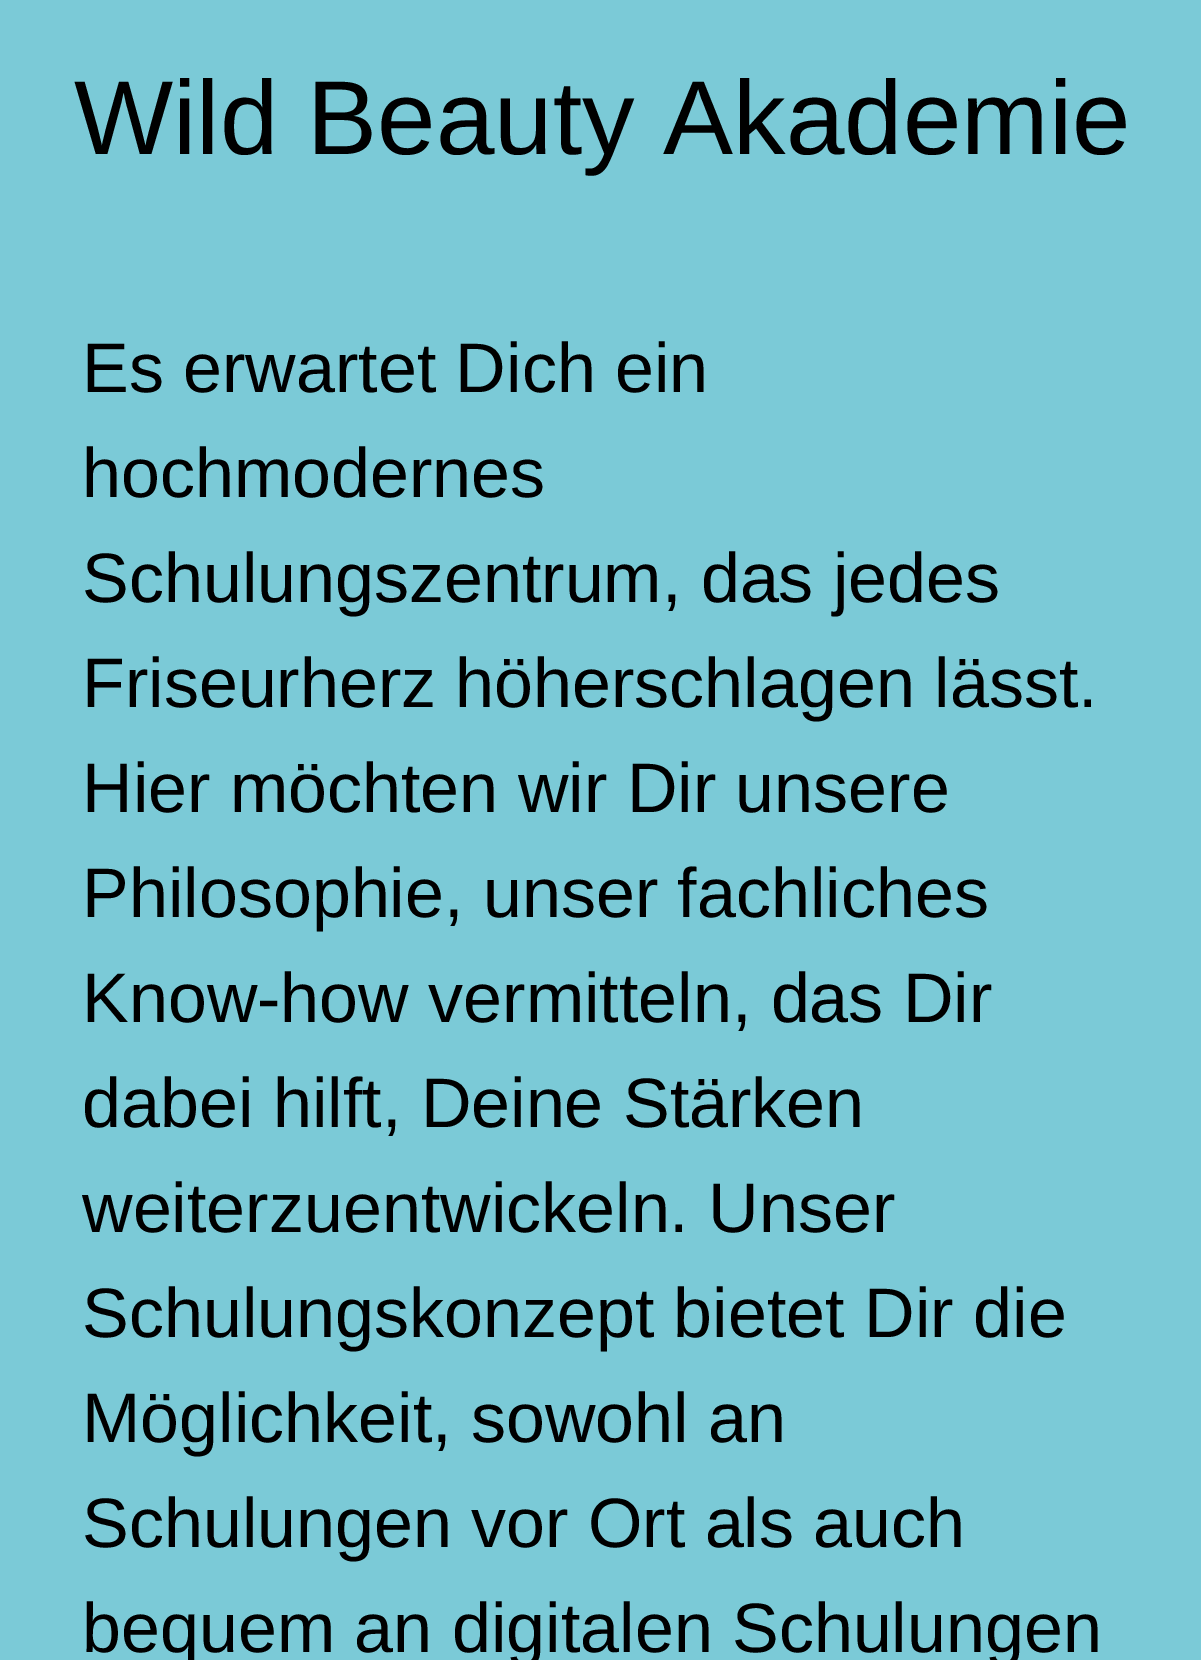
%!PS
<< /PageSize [1201 1660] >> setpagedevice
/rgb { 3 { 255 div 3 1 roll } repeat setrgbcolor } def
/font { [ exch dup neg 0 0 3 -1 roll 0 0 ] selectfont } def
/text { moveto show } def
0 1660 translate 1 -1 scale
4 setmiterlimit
123 202 215 rgb
0 0 1201 1660 rectfill
/LiberationSans-Regular 105 font
0 0 0 rgb
(Wild Beauty Akademie) 74 154 text
/LiberationSans-Regular 70 font
(Es erwartet Dich ein) 82 392 text
(hochmodernes) 82 497 text
(Schulungszentrum, das jedes) 82 602 text
(Friseurherz höherschlagen lässt.) 82 707 text
(Hier möchten wir Dir unsere) 82 812 text
(Philosophie, unser fachliches) 82 917 text
(Know-how vermitteln, das Dir) 82 1022 text
(dabei hilft, Deine Stärken) 82 1127 text
(weiterzuentwickeln. Unser) 82 1232 text
(Schulungskonzept bietet Dir die) 82 1337 text
(Möglichkeit, sowohl an) 82 1442 text
(Schulungen vor Ort als auch) 82 1547 text
(bequem an digitalen Schulungen) 82 1652 text
showpage
